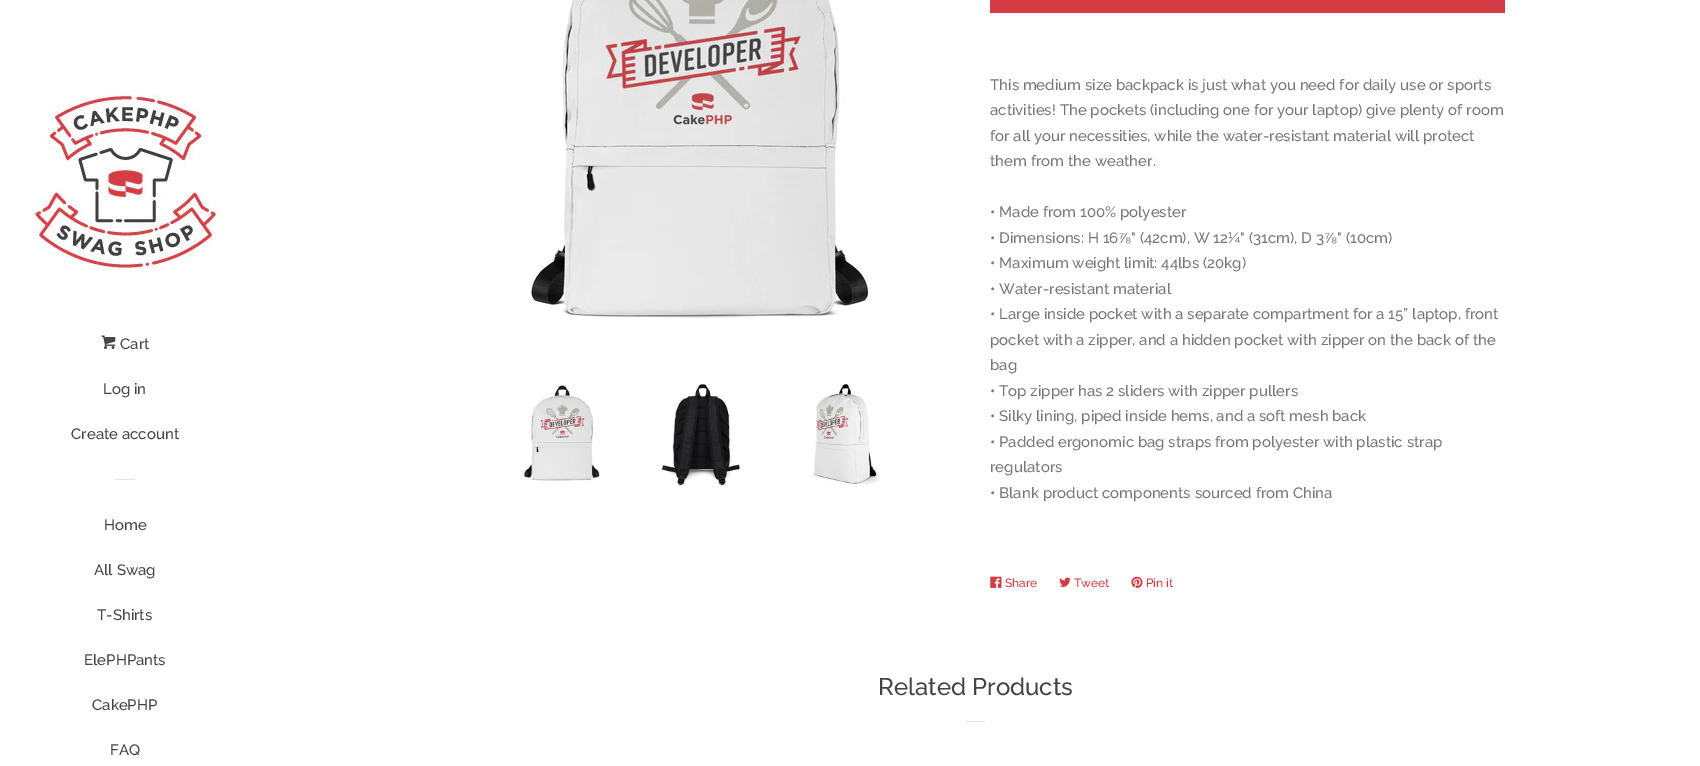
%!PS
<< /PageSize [1700 766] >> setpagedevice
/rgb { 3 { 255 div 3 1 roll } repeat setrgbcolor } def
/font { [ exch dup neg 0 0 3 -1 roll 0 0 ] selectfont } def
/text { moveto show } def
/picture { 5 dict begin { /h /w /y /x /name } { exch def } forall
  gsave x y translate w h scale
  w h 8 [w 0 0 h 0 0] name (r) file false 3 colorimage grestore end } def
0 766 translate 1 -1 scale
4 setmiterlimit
255 255 255 rgb
0 0 1700 766 rectfill
(img_01.rgb) 34 95 183 174 picture
(img_02.rgb) 101 335 15 14 picture
230 230 230 rgb
115 479 20 1 rectfill
(img_03.rgb) 531 0 340 319 picture
(img_04.rgb) 523 385 77 96 picture
(img_05.rgb) 661 384 79 102 picture
(img_06.rgb) 811 384 69 101 picture
211 60 68 rgb
990 0 515 13 rectfill
(img_07.rgb) 990 576 12 12 picture
(img_08.rgb) 1059 577 12 10 picture
(img_09.rgb) 1131 576 12 12 picture
231 231 231 rgb
965 721 20 1 rectfill
/Raleway-Medium 15 font
68 68 68 rgb
(Cart) 120 349 text
(Log in) 103 394 text
(Create account) 71 439 text
(Home) 104 530 text
(All Swag) 94 575 text
(T-Shirts) 97 620 text
(ElePHPants) 84 665 text
(CakePHP) 92 710 text
(FAQ) 110 755 text
119 119 119 rgb
(This medium size backpack is just what you need for daily use or sports) 990 90 text
(activities! The pockets \(including one for your laptop\) give plenty of room) 990 115 text
(for all your necessities, while the water-resistant material will protect) 990 141 text
(them from the weather.) 990 166 text
(• Made from 100% polyester) 990 217 text
(• Dimensions: H 16) 990 243 text
/LiberationSans-Regular 15 font
(⅞) 1118 243 text
/Raleway-Medium 15 font
(" \(42cm\), W 12¼" \(31cm\), D 3) 1131 243 text
/LiberationSans-Regular 15 font
(⅞) 1324 243 text
/Raleway-Medium 15 font
(" \(10cm\)) 1337 243 text
(• Maximum weight limit: 44lbs \(20kg\)) 990 268 text
(• Water-resistant material) 990 294 text
(• Large inside pocket with a separate compartment for a 15” laptop, front) 990 319 text
(pocket with a zipper, and a hidden pocket with zipper on the back of the) 990 345 text
(bag) 990 370 text
(• Top zipper has 2 sliders with zipper pullers) 990 396 text
(• Silky lining, piped inside hems, and a soft mesh back) 990 421 text
(• Padded ergonomic bag straps from polyester with plastic strap) 990 447 text
(regulators) 990 472 text
(• Blank product components sourced from China) 990 498 text
/Raleway-Medium 12 font
211 60 68 rgb
(Share) 1005 587 text
(Tweet) 1074 587 text
(Pin it) 1146 587 text
/Raleway-Medium 24 font
68 68 68 rgb
(Related Products) 878 695 text
showpage
